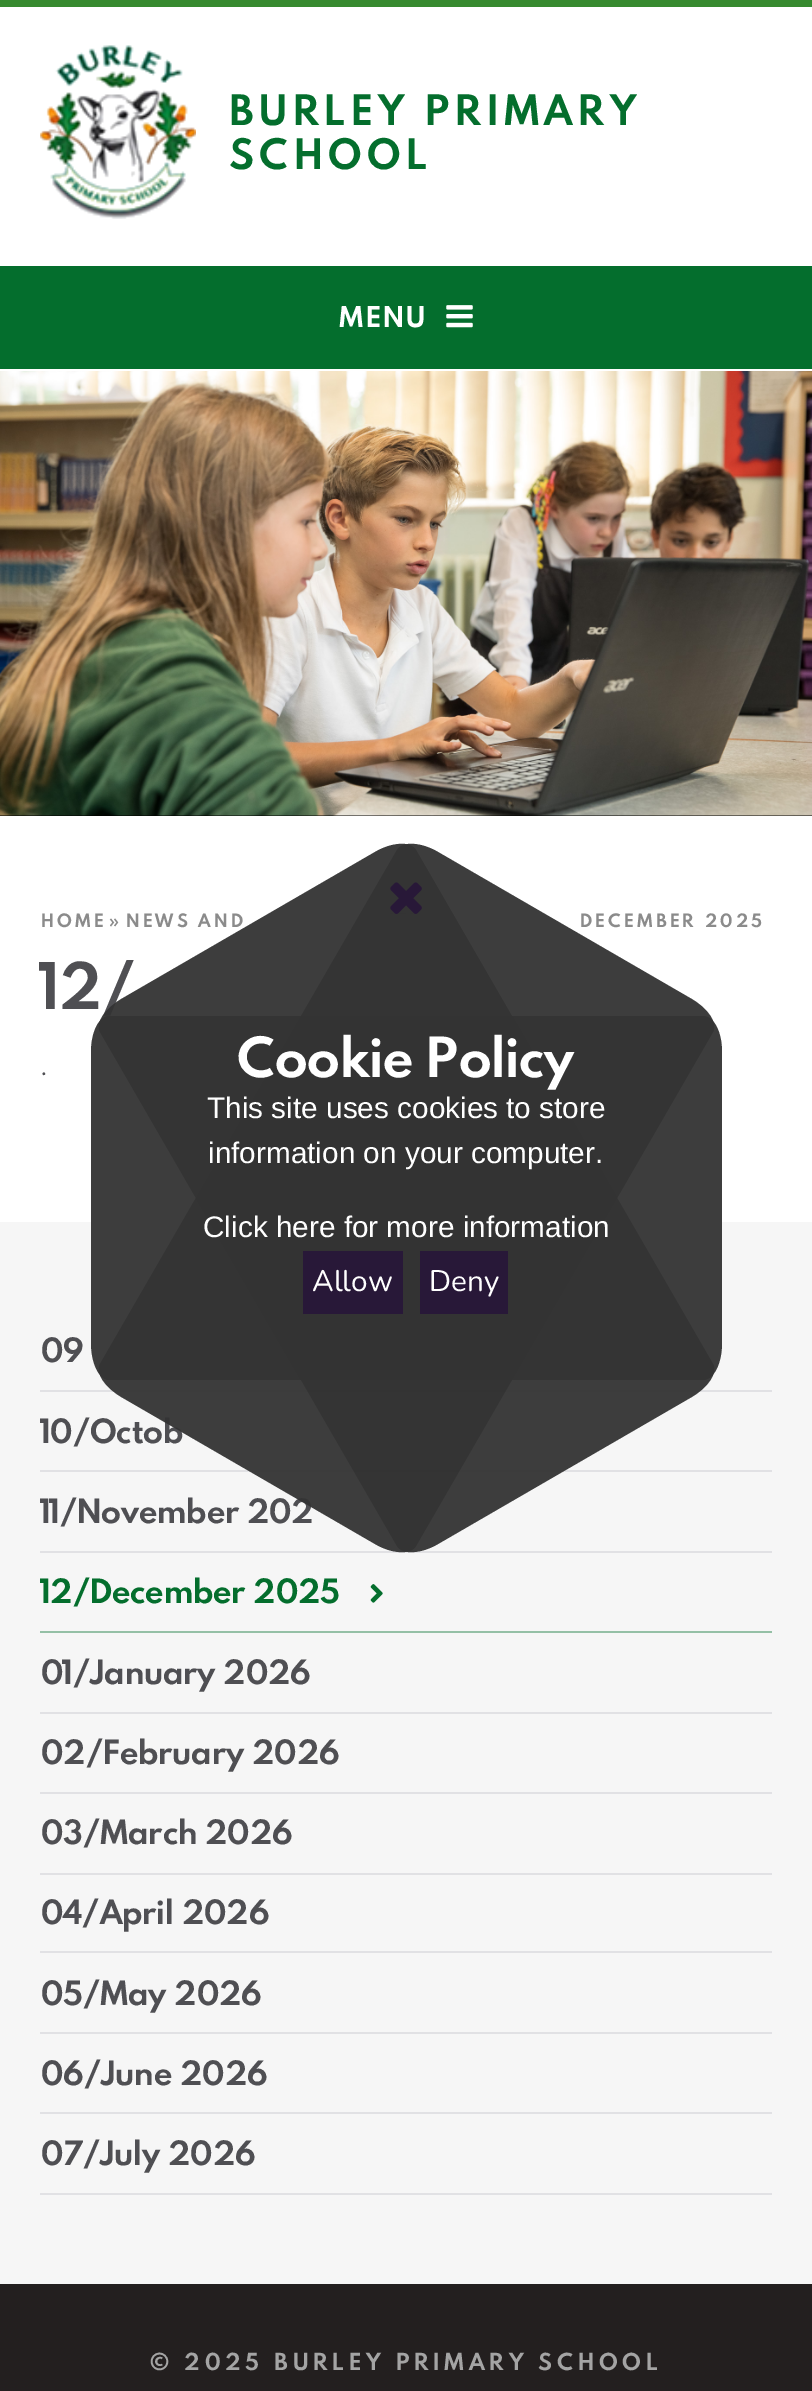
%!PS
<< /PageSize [812 2391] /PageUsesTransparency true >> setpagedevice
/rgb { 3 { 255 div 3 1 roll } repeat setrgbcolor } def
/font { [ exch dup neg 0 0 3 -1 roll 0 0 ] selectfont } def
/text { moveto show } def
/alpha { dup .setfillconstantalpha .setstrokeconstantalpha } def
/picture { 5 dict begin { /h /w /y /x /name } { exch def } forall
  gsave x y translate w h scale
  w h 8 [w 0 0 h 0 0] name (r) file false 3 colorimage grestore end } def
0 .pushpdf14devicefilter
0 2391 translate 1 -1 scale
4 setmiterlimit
255 255 255 rgb
0 0 812 2391 rectfill
55 138 47 rgb
0 0 812 7 rectfill
(img_01.rgb) 40 45 156 174 picture
4 110 45 rgb
0 266 812 103 rectfill
(img_02.rgb) 446 305 27 23 picture
0 0 0 rgb
0 815 812 1 rectfill
(img_03.rgb) 0 371 812 445 picture
246 246 246 rgb
0 1222 812 1062 rectfill
225 225 228 rgb
40 1390 732 2 rectfill
40 1470 732 2 rectfill
40 1551 732 2 rectfill
(img_04.rgb) 370 1584 13 19 picture
149 192 166 rgb
40 1631 732 2 rectfill
225 225 228 rgb
40 1712 732 2 rectfill
40 1792 732 2 rectfill
40 1873 732 2 rectfill
40 1951 732 2 rectfill
40 2032 732 2 rectfill
40 2112 732 2 rectfill
40 2193 732 2 rectfill
35 31 31 rgb
0 2284 812 107 rectfill
0.95 alpha
51 51 51 rgb
722 1052 moveto 0 291 rlineto 0 20 -8 37 -19 37 rcurveto -594 0 rlineto -10 0 -18 -17 -18 -37 rcurveto 0 -291 rlineto 0 -20 8 -36 18 -36 rcurveto 594 0 rlineto 11 0 19 16 19 36 rcurveto closepath fill
/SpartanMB-Bold 37.25 font
1 alpha
4 110 45 rgb
229 125 moveto 5.6 0 (BURLEY PRIMARY) ashow
229 169 moveto 5.6 0 (SCHOOL) ashow
/SpartanMB-Bold 25.5 font
255 255 255 rgb
339 327 moveto 2.5 0 (MENU) ashow
/SpartanMB-Bold 16.4 font
139 139 139 rgb
41 927 moveto 3.25 0 (HOME) ashow
109 927 moveto 3.25 0 (») ashow
126 927 moveto 3.25 0 (NEWS AND) ashow
580 927 moveto 3.25 0 (DECEMBER 2025) ashow
/SpartanMB-Bold 57 font
79 79 83 rgb
(12/) 41 1009 text
/Nunito-Regular 25.5 font
(.) 41 1075 text
/SpartanMB-Bold 29.75 font
(09) 41 1362 text
(10/Octob) 41 1443 text
(11/November 202) 41 1523 text
4 110 45 rgb
(12/December 2025) 41 1603 text
79 79 83 rgb
(01/January 2026) 41 1684 text
(02/February 2026) 41 1764 text
(03/March 2026) 41 1844 text
(04/April 2026) 41 1924 text
(05/May 2026) 41 2005 text
(06/June 2026) 41 2085 text
(07/July 2026) 41 2165 text
/SpartanMB-Bold 20.8 font
164 164 164 rgb
150 2370 moveto 4.8 0 (© 2025 BURLEY PRIMARY SCHOOL) ashow
0.95 alpha
51 51 51 rgb
690 1398 moveto -252 146 rlineto -17 10 -36 11 -41 2 rcurveto -297 -514 rlineto -5 -9 5 -24 23 -34 rcurveto 252 -146 rlineto 17 -10 36 -11 41 -2 rcurveto 297 514 rlineto 5 9 -5 24 -23 34 rcurveto closepath fill
438 852 moveto 252 146 rlineto 18 10 28 25 23 34 rcurveto -297 514 rlineto -5 9 -24 8 -41 -2 rcurveto -252 -146 rlineto -18 -10 -28 -25 -23 -34 rcurveto 297 -514 rlineto 5 -9 24 -8 41 2 rcurveto closepath fill
1 alpha
(img_05.rgb) 390 882 32 32 picture
/SpartanMB-Bold 49 font
255 255 255 rgb
(Cookie Policy) 237 1077 text
/LiberationSans-Regular 29.75 font
(This site uses cookies to store) 207 1118 text
(information on your computer.) 208 1163 text
(Click here for more information) 203 1237 text
40 24 56 rgb
303 1251 100 63 rectfill
/Nunito-Regular 29.75 font
255 255 255 rgb
(Allow) 312 1291 text
40 24 56 rgb
420 1251 88 63 rectfill
255 255 255 rgb
(Deny) 429 1291 text
.poppdf14devicefilter showpage
